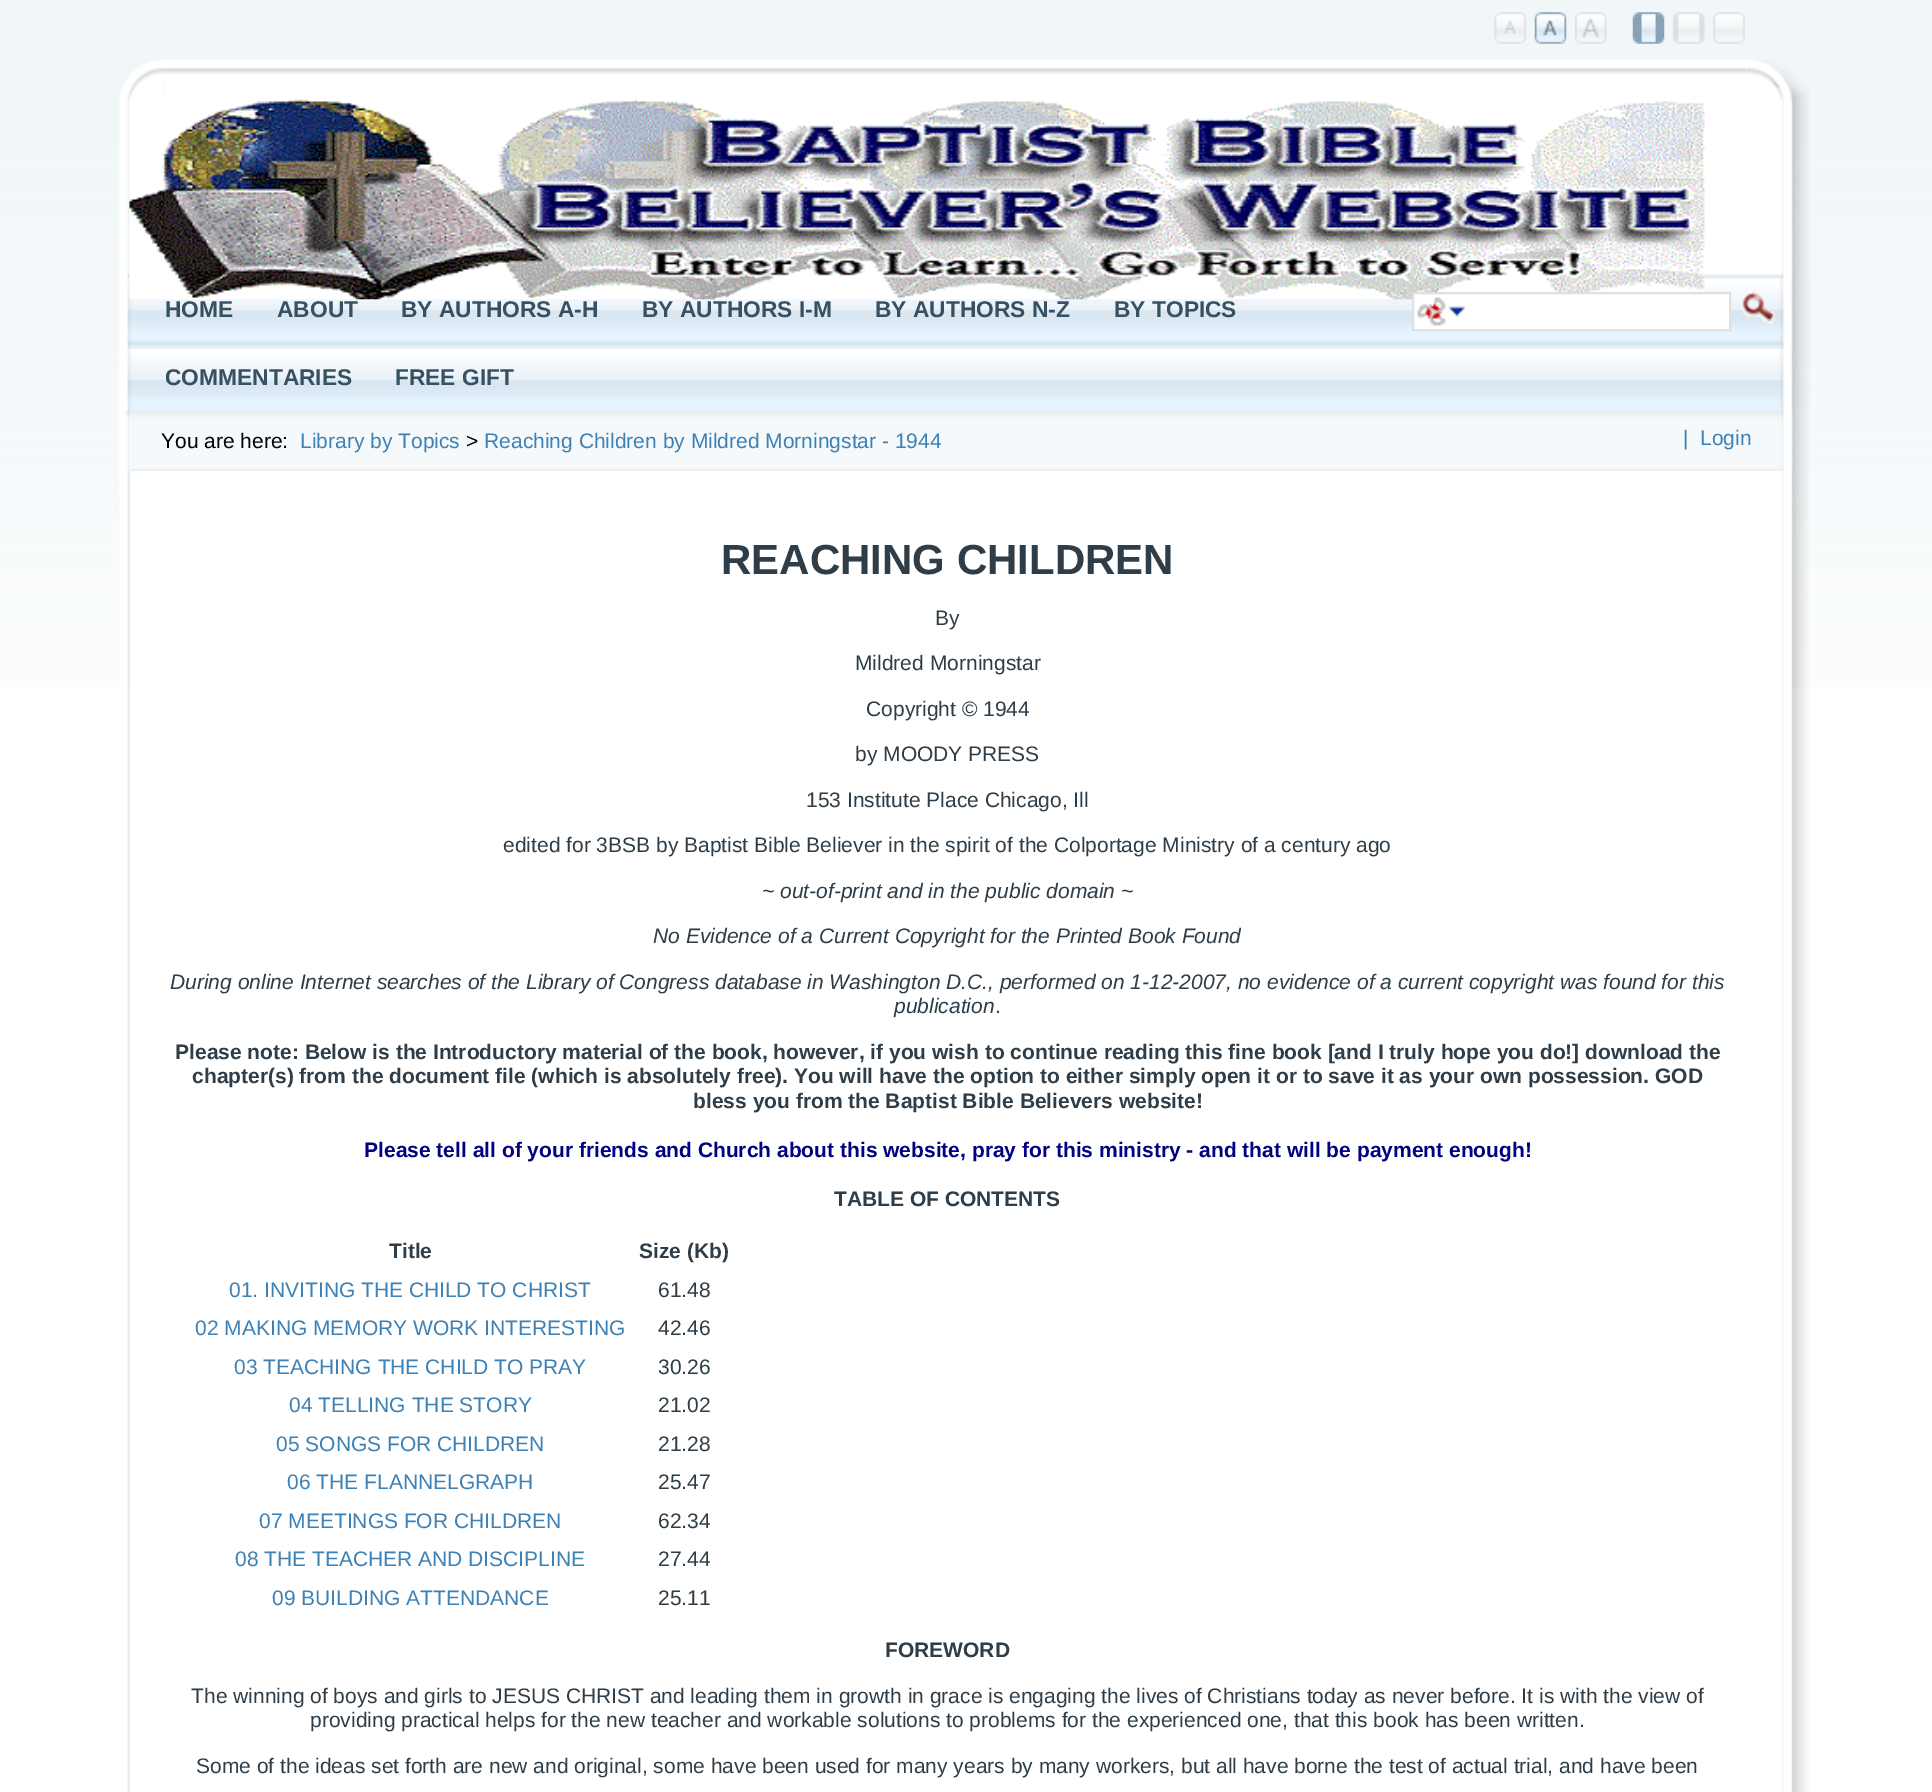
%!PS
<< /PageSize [1932 1792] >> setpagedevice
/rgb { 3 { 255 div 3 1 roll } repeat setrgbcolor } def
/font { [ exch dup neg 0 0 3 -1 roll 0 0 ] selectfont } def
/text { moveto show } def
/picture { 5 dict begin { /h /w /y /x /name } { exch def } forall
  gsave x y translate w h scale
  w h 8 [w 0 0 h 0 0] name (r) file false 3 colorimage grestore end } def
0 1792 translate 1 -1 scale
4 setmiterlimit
255 255 255 rgb
0 0 1932 1792 rectfill
(img_01.rgb) 0 0 1932 687 picture
(img_02.rgb) 1494 12 32 32 picture
(img_03.rgb) 1534 12 33 32 picture
(img_04.rgb) 1575 12 32 32 picture
(img_05.rgb) 1632 12 33 32 picture
(img_06.rgb) 1673 12 32 32 picture
(img_07.rgb) 1713 12 32 32 picture
(img_08.rgb) 119 59 46 41 picture
(img_09.rgb) 1746 59 63 41 picture
165 60 1582 40 rectfill
(img_10.rgb) 164 59 1583 15 picture
(img_11.rgb) 119 100 11 175 picture
(img_12.rgb) 1782 99 27 176 picture
1704 100 78 175 rectfill
(img_14.rgb) 119 274 25 138 picture
(img_15.rgb) 1774 274 36 138 picture
(img_16.rgb) 133 274 1645 138 picture
(img_13.rgb) 129 99 1576 201 picture
1413 293 moveto 317 0 rlineto 0 37 rlineto -317 0 rlineto closepath gsave fill grestore
224 224 224 rgb
2 setlinewidth
stroke
(img_17.rgb) 1417 297 29 29 picture
(img_18.rgb) 1448 306 18 12 picture
(img_19.rgb) 1741 292 34 32 picture
(img_20.rgb) 119 411 11 60 picture
(img_21.rgb) 1781 411 28 60 picture
(img_22.rgb) 129 411 1653 60 picture
(img_23.rgb) 119 471 11 1321 picture
(img_24.rgb) 1781 470 28 1322 picture
255 255 255 rgb
130 471 1652 1321 rectfill
/LiberationSans-Bold 22.75 font
55 81 98 rgb
(HOME) 165 317 text
(ABOUT) 277 317 text
(BY AUTHORS A-H) 401 317 text
(BY AUTHORS I-M) 642 317 text
(BY AUTHORS N-Z) 875 317 text
(BY TOPICS) 1114 317 text
(COMMENTARIES) 165 385 text
(FREE GIFT) 395 385 text
/LiberationSans-Regular 21 font
0 0 0 rgb
(You are here:) 161 448 text
62 129 181 rgb
(Library by Topics) 300 448 text
0 0 0 rgb
(>) 466 448 text
62 129 181 rgb
(Reaching Children by Mildred Morningstar - 1944) 484 448 text
(|) 1683 445 text
(Login) 1700 445 text
/LiberationSans-Bold 42 font
46 61 71 rgb
(REACHING CHILDREN) 721 574 text
/LiberationSans-Regular 21 font
(By) 935 625 text
(Mildred Morningstar) 855 670 text
(Copyright © 1944) 866 716 text
(by MOODY PRESS) 855 761 text
(153 Institute Place Chicago, Ill) 806 807 text
(edited for 3BSB by Baptist Bible Believer in the spirit of the Colportage Ministry of a century ago) 503 852 text
/LiberationSans-Italic 21 font
(~ out-of-print and in the public domain ~) 762 898 text
(No Evidence of a Current Copyright for the Printed Book Found) 653 943 text
(During online Internet searches of the Library of Congress database in Washington D.C., performed on 1-12-2007, no evidence of a current copyright was found for this) 170 989 text
(publication) 894 1013 text
/LiberationSans-Regular 21 font
(.) 995 1013 text
/LiberationSans-Bold 21 font
(Please note: Below is the Introductory material of the book, however, if you wish to continue reading this fine book [and I truly hope you do!] download the) 175 1059 text
(chapter\(s\) from the document file \(which is absolutely free\). You will have the option to either simply open it or to save it as your own possession. GOD) 192 1083 text
(bless you from the Baptist Bible Believers website!) 693 1108 text
0 0 128 rgb
(Please tell all of your friends and Church about this website, pray for this ministry - and that will be payment enough!) 364 1157 text
46 61 71 rgb
(TABLE OF CONTENTS) 834 1206 text
(Title) 389 1258 text
(Size \(Kb\)) 639 1258 text
/LiberationSans-Regular 21 font
62 129 181 rgb
(01. INVITING THE CHILD TO CHRIST) 229 1297 text
46 61 71 rgb
(61.48) 658 1297 text
62 129 181 rgb
(02 MAKING MEMORY WORK INTERESTING) 195 1335 text
46 61 71 rgb
(42.46) 658 1335 text
62 129 181 rgb
(03 TEACHING THE CHILD TO PRAY) 234 1374 text
46 61 71 rgb
(30.26) 658 1374 text
62 129 181 rgb
(04 TELLING THE STORY) 289 1412 text
46 61 71 rgb
(21.02) 658 1412 text
62 129 181 rgb
(05 SONGS FOR CHILDREN) 276 1451 text
46 61 71 rgb
(21.28) 658 1451 text
62 129 181 rgb
(06 THE FLANNELGRAPH) 287 1489 text
46 61 71 rgb
(25.47) 658 1489 text
62 129 181 rgb
(07 MEETINGS FOR CHILDREN) 259 1528 text
46 61 71 rgb
(62.34) 658 1528 text
62 129 181 rgb
(08 THE TEACHER AND DISCIPLINE) 235 1566 text
46 61 71 rgb
(27.44) 658 1566 text
62 129 181 rgb
(09 BUILDING ATTENDANCE) 272 1605 text
46 61 71 rgb
(25.11) 658 1605 text
/LiberationSans-Bold 21 font
(FOREWORD) 885 1657 text
/LiberationSans-Regular 21 font
(The winning of boys and girls to JESUS CHRIST and leading them in growth in grace is engaging the lives of Christians today as never before. It is with the view of) 191 1703 text
(providing practical helps for the new teacher and workable solutions to problems for the experienced one, that this book has been written.) 310 1727 text
(Some of the ideas set forth are new and original, some have been used for many years by many workers, but all have borne the test of actual trial, and have been) 196 1773 text
showpage
